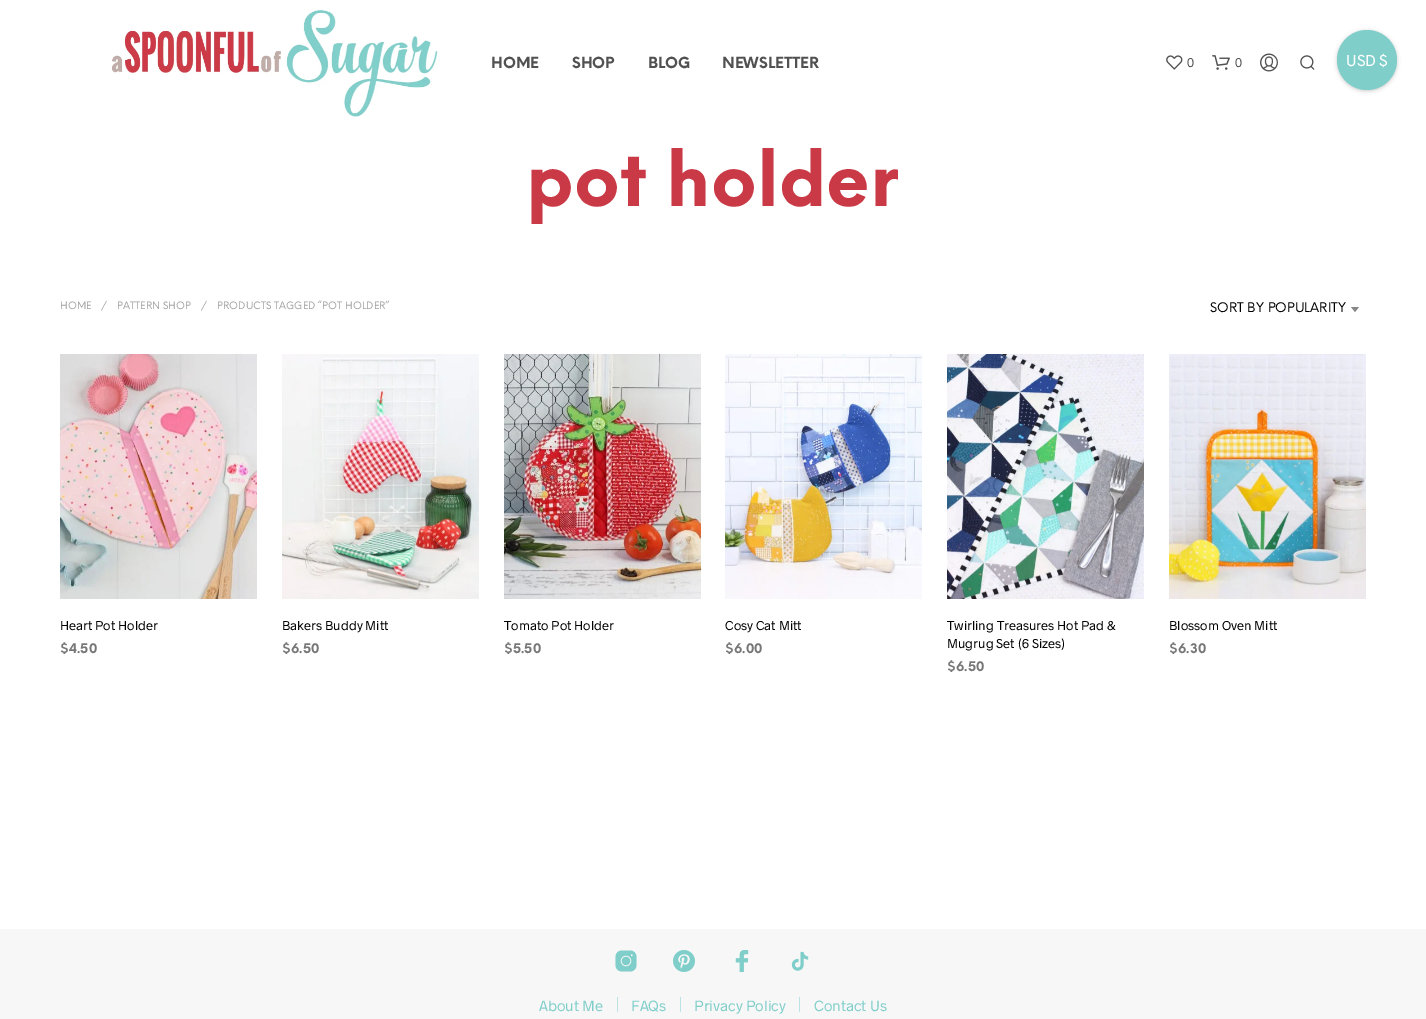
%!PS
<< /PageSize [1426 1019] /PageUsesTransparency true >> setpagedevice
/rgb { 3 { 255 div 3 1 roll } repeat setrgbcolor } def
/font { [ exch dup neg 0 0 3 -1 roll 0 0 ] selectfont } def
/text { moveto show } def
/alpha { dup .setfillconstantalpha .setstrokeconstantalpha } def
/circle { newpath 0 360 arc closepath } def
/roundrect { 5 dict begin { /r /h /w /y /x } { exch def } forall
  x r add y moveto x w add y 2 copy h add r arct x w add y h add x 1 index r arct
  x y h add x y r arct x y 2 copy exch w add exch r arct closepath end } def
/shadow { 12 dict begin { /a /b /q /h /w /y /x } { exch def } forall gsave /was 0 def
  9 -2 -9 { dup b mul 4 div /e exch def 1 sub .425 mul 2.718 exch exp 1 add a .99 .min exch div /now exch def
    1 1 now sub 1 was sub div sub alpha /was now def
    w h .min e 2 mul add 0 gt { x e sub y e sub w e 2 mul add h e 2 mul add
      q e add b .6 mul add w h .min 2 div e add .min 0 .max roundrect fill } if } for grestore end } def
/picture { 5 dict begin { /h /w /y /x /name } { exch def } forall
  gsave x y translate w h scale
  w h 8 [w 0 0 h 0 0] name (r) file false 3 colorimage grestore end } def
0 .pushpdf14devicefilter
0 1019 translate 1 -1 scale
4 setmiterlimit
255 255 255 rgb
0 0 1426 1019 rectfill
(img_01.rgb) 111 10 327 107 picture
(img_02.rgb) 1166 55 17 15 picture
(img_03.rgb) 1212 55 18 15 picture
(img_04.rgb) 1260 53 18 19 picture
(img_05.rgb) 1300 55 15 15 picture
136 136 136 rgb
1351 307 moveto 8 0 rlineto -4 5 rlineto closepath fill
(img_06.rgb) 60 354 197 245 picture
(img_07.rgb) 282 354 197 245 picture
(img_08.rgb) 504 354 197 245 picture
(img_09.rgb) 725 354 197 245 picture
(img_10.rgb) 947 354 197 245 picture
(img_11.rgb) 1169 354 197 245 picture
247 247 247 rgb
0 929 1426 90 rectfill
(img_12.rgb) 615 950 22 22 picture
(img_13.rgb) 673 950 22 22 picture
(img_14.rgb) 735 950 14 23 picture
(img_15.rgb) 791 951 18 20 picture
188 227 225 rgb
617 997 1 15 rectfill
680 997 1 15 rectfill
799 997 1 15 rectfill
0 0 0 rgb
1337 31 60 60 30 2 0.2 shadow
128 206 202 rgb
1367 60 30 circle fill
/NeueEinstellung-Bold 15 font
81 81 81 rgb
(HOME) 491 68 text
(SHOP) 572 68 text
(BLOG) 648 68 text
(NEWSLETTER) 722 68 text
/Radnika-Regular 13 font
(0) 1187 67 text
(0) 1235 67 text
/NeueEinstellung-Bold 72.5 font
202 58 70 rgb
(pot holder) 526 206 text
/NeueEinstellung-Regular 10 font
161 161 161 rgb
(HOME) 60 309 text
(/) 101 309 text
(PATTERN SHOP) 117 309 text
(/) 201 309 text
(PRODUCTS TAGGED “POT HOLDER”) 217 309 text
/NeueEinstellung-Regular 13 font
0 0 0 rgb
(SORT BY POPULARITY) 1210 312 text
/Radnika-Regular 13 font
(Heart Pot Holder) 60 630 text
/NeueEinstellung-Bold 13 font
118 118 118 rgb
($4.50) 60 653 text
/Radnika-Regular 13 font
0 0 0 rgb
(Bakers Buddy Mitt) 282 630 text
/NeueEinstellung-Bold 13 font
118 118 118 rgb
($6.50) 282 653 text
/Radnika-Regular 13 font
0 0 0 rgb
(Tomato Pot Holder) 504 630 text
/NeueEinstellung-Bold 13 font
118 118 118 rgb
($5.50) 504 653 text
/Radnika-Regular 13 font
0 0 0 rgb
(Cosy Cat Mitt) 725 630 text
/NeueEinstellung-Bold 13 font
118 118 118 rgb
($6.00) 725 653 text
/Radnika-Regular 13 font
0 0 0 rgb
(Twirling Treasures Hot Pad &) 947 630 text
(Mugrug Set \(6 Sizes\)) 947 648 text
/NeueEinstellung-Bold 13 font
118 118 118 rgb
($6.50) 947 671 text
/Radnika-Regular 13 font
0 0 0 rgb
(Blossom Oven Mitt) 1169 630 text
/NeueEinstellung-Bold 13 font
118 118 118 rgb
($6.30) 1169 653 text
/Radnika-Regular 15 font
128 206 202 rgb
(About Me) 539 1011 text
(FAQs) 631 1011 text
(Privacy Policy) 694 1011 text
(Contact Us) 814 1011 text
/Radnika-Regular 16 font
255 255 255 rgb
(USD $) 1346 66 text
.poppdf14devicefilter showpage
